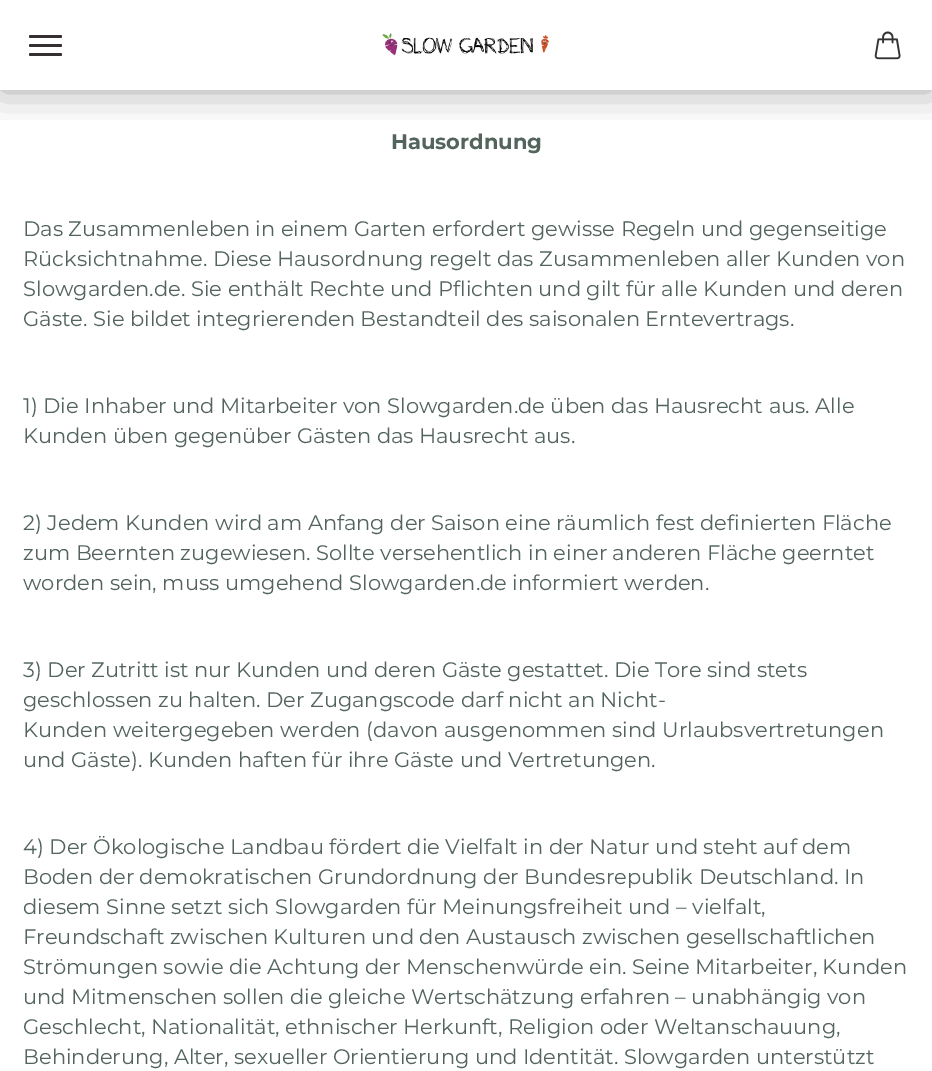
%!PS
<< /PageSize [932 1071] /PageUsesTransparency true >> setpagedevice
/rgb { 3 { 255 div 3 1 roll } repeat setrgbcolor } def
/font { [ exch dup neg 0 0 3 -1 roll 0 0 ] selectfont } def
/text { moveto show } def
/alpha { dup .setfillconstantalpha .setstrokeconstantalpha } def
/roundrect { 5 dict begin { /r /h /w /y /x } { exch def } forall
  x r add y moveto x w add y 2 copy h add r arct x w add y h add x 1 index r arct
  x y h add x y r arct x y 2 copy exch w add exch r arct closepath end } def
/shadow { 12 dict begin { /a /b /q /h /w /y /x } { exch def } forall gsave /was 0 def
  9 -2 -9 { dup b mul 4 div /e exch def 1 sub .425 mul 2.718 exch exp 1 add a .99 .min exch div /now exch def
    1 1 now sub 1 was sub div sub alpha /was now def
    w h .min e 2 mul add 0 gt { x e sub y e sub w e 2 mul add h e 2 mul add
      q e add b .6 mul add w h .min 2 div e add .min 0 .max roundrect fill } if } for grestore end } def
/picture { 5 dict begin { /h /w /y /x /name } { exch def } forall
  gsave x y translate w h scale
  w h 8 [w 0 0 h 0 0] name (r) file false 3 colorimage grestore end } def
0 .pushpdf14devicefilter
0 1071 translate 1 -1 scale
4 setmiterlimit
255 255 255 rgb
0 0 932 1071 rectfill
gsave
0 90 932 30 rectclip
0 0 0 rgb
0 0 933 90 0 19 0.35 shadow
grestore
(img_01.rgb) 382 33 167 23 picture
(img_02.rgb) 874 31 27 29 picture
53 47 47 rgb
29 44 33 3 1.5 roundrect fill
29 35 33 3 1.5 roundrect fill
29 53 33 3 1.5 roundrect fill
/Montserrat-Thin 21 font
83 100 92 rgb
(Hausordnung) 391 149 text
/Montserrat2-Thin 21 font
(Das Zusammenleben in einem Garten erfordert gewisse Regeln und gegenseitige) 23 236 text
(Rücksichtnahme. Diese Hausordnung regelt das Zusammenleben aller Kunden von) 23 266 text
(Slowgarden.de. Sie enthält Rechte und Pflichten und gilt für alle Kunden und deren) 23 296 text
(Gäste. Sie bildet integrierenden Bestandteil des saisonalen Erntevertrags.) 23 326 text
(1\) Die Inhaber und Mitarbeiter von Slowgarden.de üben das Hausrecht aus. Alle) 23 413 text
(Kunden üben gegenüber Gästen das Hausrecht aus.) 23 443 text
(2\) Jedem Kunden wird am Anfang der Saison eine räumlich fest definierten Fläche) 23 530 text
(zum Beernten zugewiesen. Sollte versehentlich in einer anderen Fläche geerntet) 23 560 text
(worden sein, muss umgehend Slowgarden.de informiert werden.) 23 590 text
(3\) Der Zutritt ist nur Kunden und deren Gäste gestattet. Die Tore sind stets) 23 677 text
(geschlossen zu halten. Der Zugangscode darf nicht an Nicht-) 23 707 text
(Kunden weitergegeben werden \(davon ausgenommen sind Urlaubsvertretungen) 23 737 text
(und Gäste\). Kunden haften für ihre Gäste und Vertretungen.) 23 767 text
(4\) Der Ökologische Landbau fördert die Vielfalt in der Natur und steht auf dem) 23 854 text
(Boden der demokratischen Grundordnung der Bundesrepublik Deutschland. In) 23 884 text
(diesem Sinne setzt sich Slowgarden für Meinungsfreiheit und – vielfalt,) 23 914 text
(Freundschaft zwischen Kulturen und den Austausch zwischen gesellschaftlichen) 23 944 text
(Strömungen sowie die Achtung der Menschenwürde ein. Seine Mitarbeiter, Kunden) 23 974 text
(und Mitmenschen sollen die gleiche Wertschätzung erfahren – unabhängig von) 23 1004 text
(Geschlecht, Nationalität, ethnischer Herkunft, Religion oder Weltanschauung,) 23 1034 text
(Behinderung, Alter, sexueller Orientierung und Identität. Slowgarden unterstützt) 23 1064 text
.poppdf14devicefilter showpage
